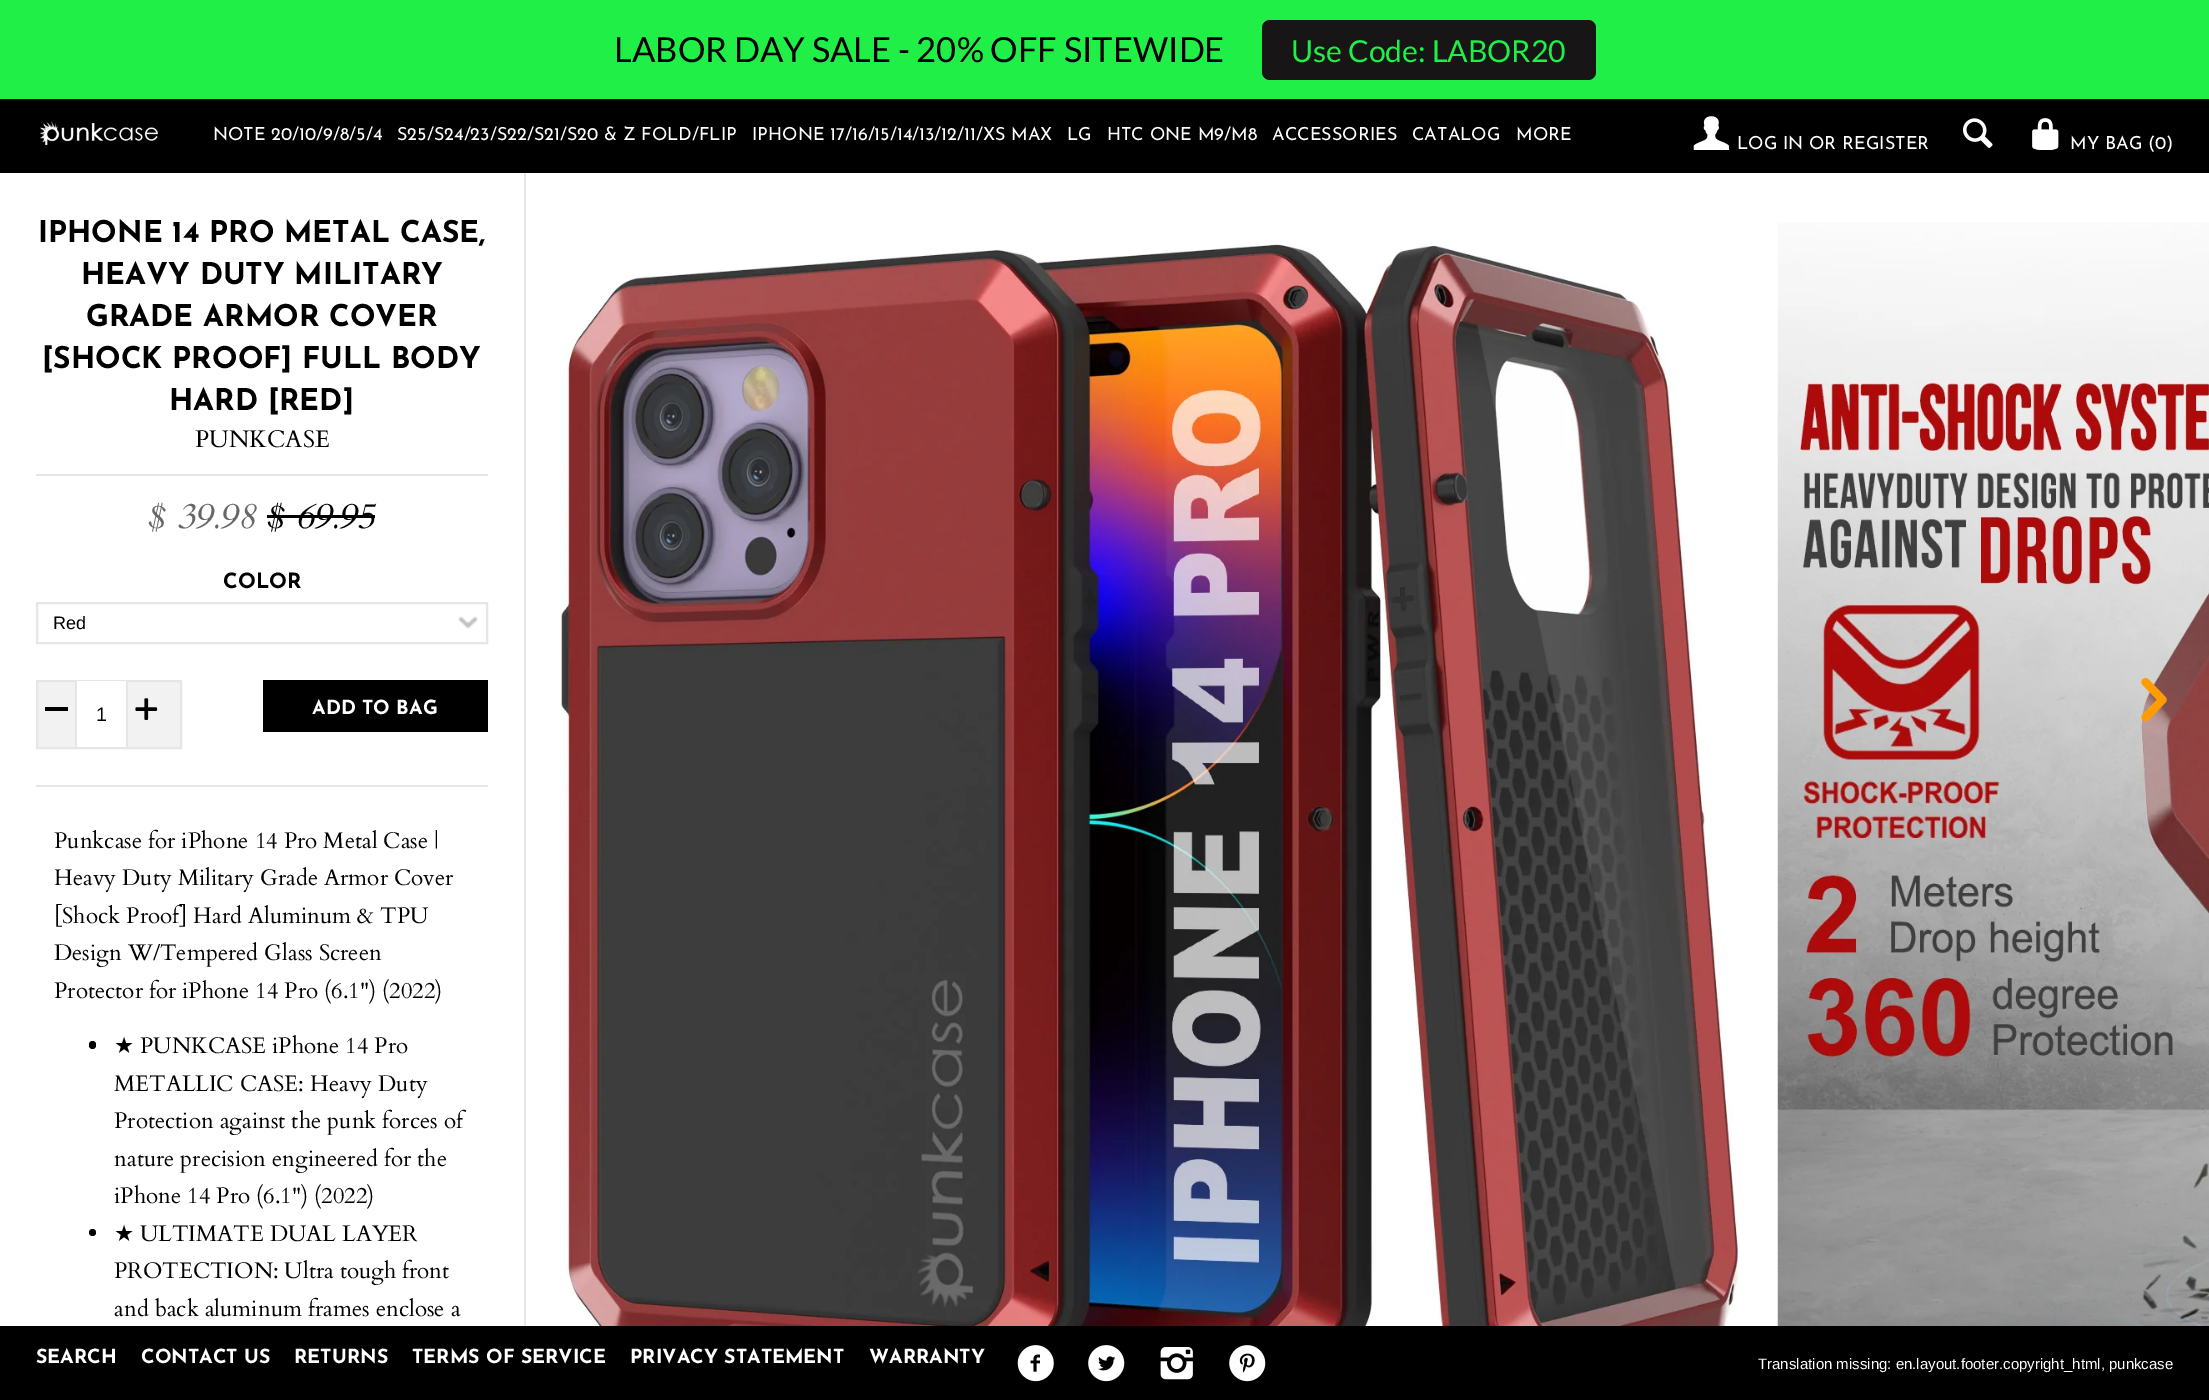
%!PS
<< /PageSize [2209 1400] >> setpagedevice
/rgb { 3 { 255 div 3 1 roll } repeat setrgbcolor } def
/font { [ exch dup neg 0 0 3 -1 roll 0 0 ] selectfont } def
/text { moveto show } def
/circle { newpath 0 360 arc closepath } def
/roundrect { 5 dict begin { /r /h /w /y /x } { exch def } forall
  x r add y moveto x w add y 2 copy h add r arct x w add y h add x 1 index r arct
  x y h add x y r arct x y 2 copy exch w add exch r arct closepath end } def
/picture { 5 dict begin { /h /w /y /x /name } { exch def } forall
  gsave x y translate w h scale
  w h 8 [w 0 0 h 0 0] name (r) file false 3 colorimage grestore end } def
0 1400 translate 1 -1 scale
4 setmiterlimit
255 255 255 rgb
0 0 2209 1400 rectfill
32 239 72 rgb
0 0 2209 99 rectfill
23 21 21 rgb
1262 20 334 60 8 roundrect fill
0 0 0 rgb
0 99 2209 74 rectfill
(img_01.rgb) 39 121 119 25 picture
(img_02.rgb) 1693 116 36 34 picture
(img_03.rgb) 1963 118 30 30 picture
(img_04.rgb) 2032 118 27 32 picture
230 230 230 rgb
524 173 2 1153 rectfill
36 474 452 2 rectfill
0 0 0 rgb
267 515 108 3 rectfill
(img_05.rgb) 458 616 20 13 picture
230 230 230 rgb
2 setlinewidth
37 603 450 40 rectstroke
242 242 242 rgb
37 681 moveto 144 0 rlineto 0 67 rlineto -144 0 rlineto closepath gsave fill grestore
230 230 230 rgb
stroke
0 0 0 rgb
45 707 23 4 rectfill
255 255 255 rgb
77 681 49 66 rectfill
230 230 230 rgb
126 681 2 66 rectfill
75 681 2 66 rectfill
(img_06.rgb) 135 698 23 22 picture
0 0 0 rgb
263 680 225 52 rectfill
230 230 230 rgb
36 785 452 2 rectfill
0 0 0 rgb
89 1041 7 8 3.5 roundrect fill
92.5 1232.5 3.5 circle fill
(img_07.rgb) 560 244 1179 1082 picture
(img_08.rgb) 1777 222 432 1104 picture
(img_09.rgb) 2141 678 26 44 picture
0 1326 2209 74 rectfill
(img_10.rgb) 1017 1345 37 37 picture
(img_11.rgb) 1088 1345 37 37 picture
(img_12.rgb) 1160 1347 33 33 picture
(img_13.rgb) 1229 1345 37 37 picture
/Lato-Regular 34.5 font
(LABOR DAY SALE - 20% OFF SITEWIDE) 614 62 text
/Lato-Regular 30.25 font
32 239 72 rgb
(Use Code: LABOR20) 1291 62 text
/JosefinSans-Regular 18 font
255 255 255 rgb
(NOTE 20/10/9/8/5/4) 213 140 text
(S25/S24/23/S22/S21/S20 & Z FOLD/FLIP) 397 140 text
(IPHONE 17/16/15/14/13/12/11/XS MAX) 752 140 text
(LG) 1067 140 text
(HTC ONE M9/M8) 1107 140 text
(ACCESSORIES) 1272 140 text
(CATALOG) 1412 140 text
(MORE) 1516 140 text
(LOG IN OR REGISTER) 1737 149 text
(MY BAG \(0) 2070 149 text
(\)) 2166 149 text
/JosefinSans-Bold 30 font
0 0 0 rgb
(IPHONE 14 PRO METAL CASE,) 38 242 text
(HEAVY DUTY MILITARY) 81 284 text
(GRADE ARMOR COVER) 86 326 text
([SHOCK PROOF] FULL BODY) 42 368 text
(HARD [RED]) 169 410 text
/Cardo-Regular 24 font
(PUNKCASE) 195 447 text
/Cardo-Italic 36 font
102 102 102 rgb
($ 39.98) 148 528 text
0 0 0 rgb
($ 69.95) 267 528 text
/JosefinSans-Bold 21 font
(COLOR) 223 588 text
/LiberationSans-Regular 18 font
(Red) 53 629 text
/LiberationSans-Regular 19.5 font
(1) 96 721 text
/JosefinSans-Bold 19.5 font
255 255 255 rgb
(ADD TO BAG) 312 714 text
/Cardo-Regular 22.5 font
0 0 0 rgb
(Punkcase for iPhone 14 Pro Metal Case |) 54 848 text
(Heavy Duty Military Grade Armor Cover) 54 885 text
([Shock Proof] Hard Aluminum & TPU) 54 923 text
(Design W/Tempered Glass Screen) 54 960 text
(Protector for iPhone 14 Pro \(6.1"\) \(2022\)) 54 998 text
/DejaVuSans-Regular 22.5 font
(★) 114 1053 text
/Cardo-Regular 22.5 font
(PUNKCASE iPhone 14 Pro) 140 1053 text
(METALLIC CASE: Heavy Duty) 114 1091 text
(Protection against the punk forces of) 114 1128 text
(nature precision engineered for the) 114 1166 text
(iPhone 14 Pro \(6.1"\) \(2022\)) 114 1203 text
/DejaVuSans-Regular 22.5 font
(★) 114 1241 text
/Cardo-Regular 22.5 font
(ULTIMATE DUAL LAYER) 140 1241 text
(PROTECTION: Ultra tough front) 114 1278 text
(and back aluminum frames enclose a) 114 1316 text
/JosefinSans-Bold 19.5 font
255 255 255 rgb
(SEARCH) 36 1363 text
(CONTACT US) 141 1363 text
(RETURNS) 294 1363 text
(TERMS OF SERVICE) 412 1363 text
(PRIVACY STATEMENT) 630 1363 text
(WARRANTY) 869 1363 text
/LiberationSans-Regular 15 font
(Translation missing: en.layout.footer.copyright_html, punkcase) 1758 1369 text
showpage
